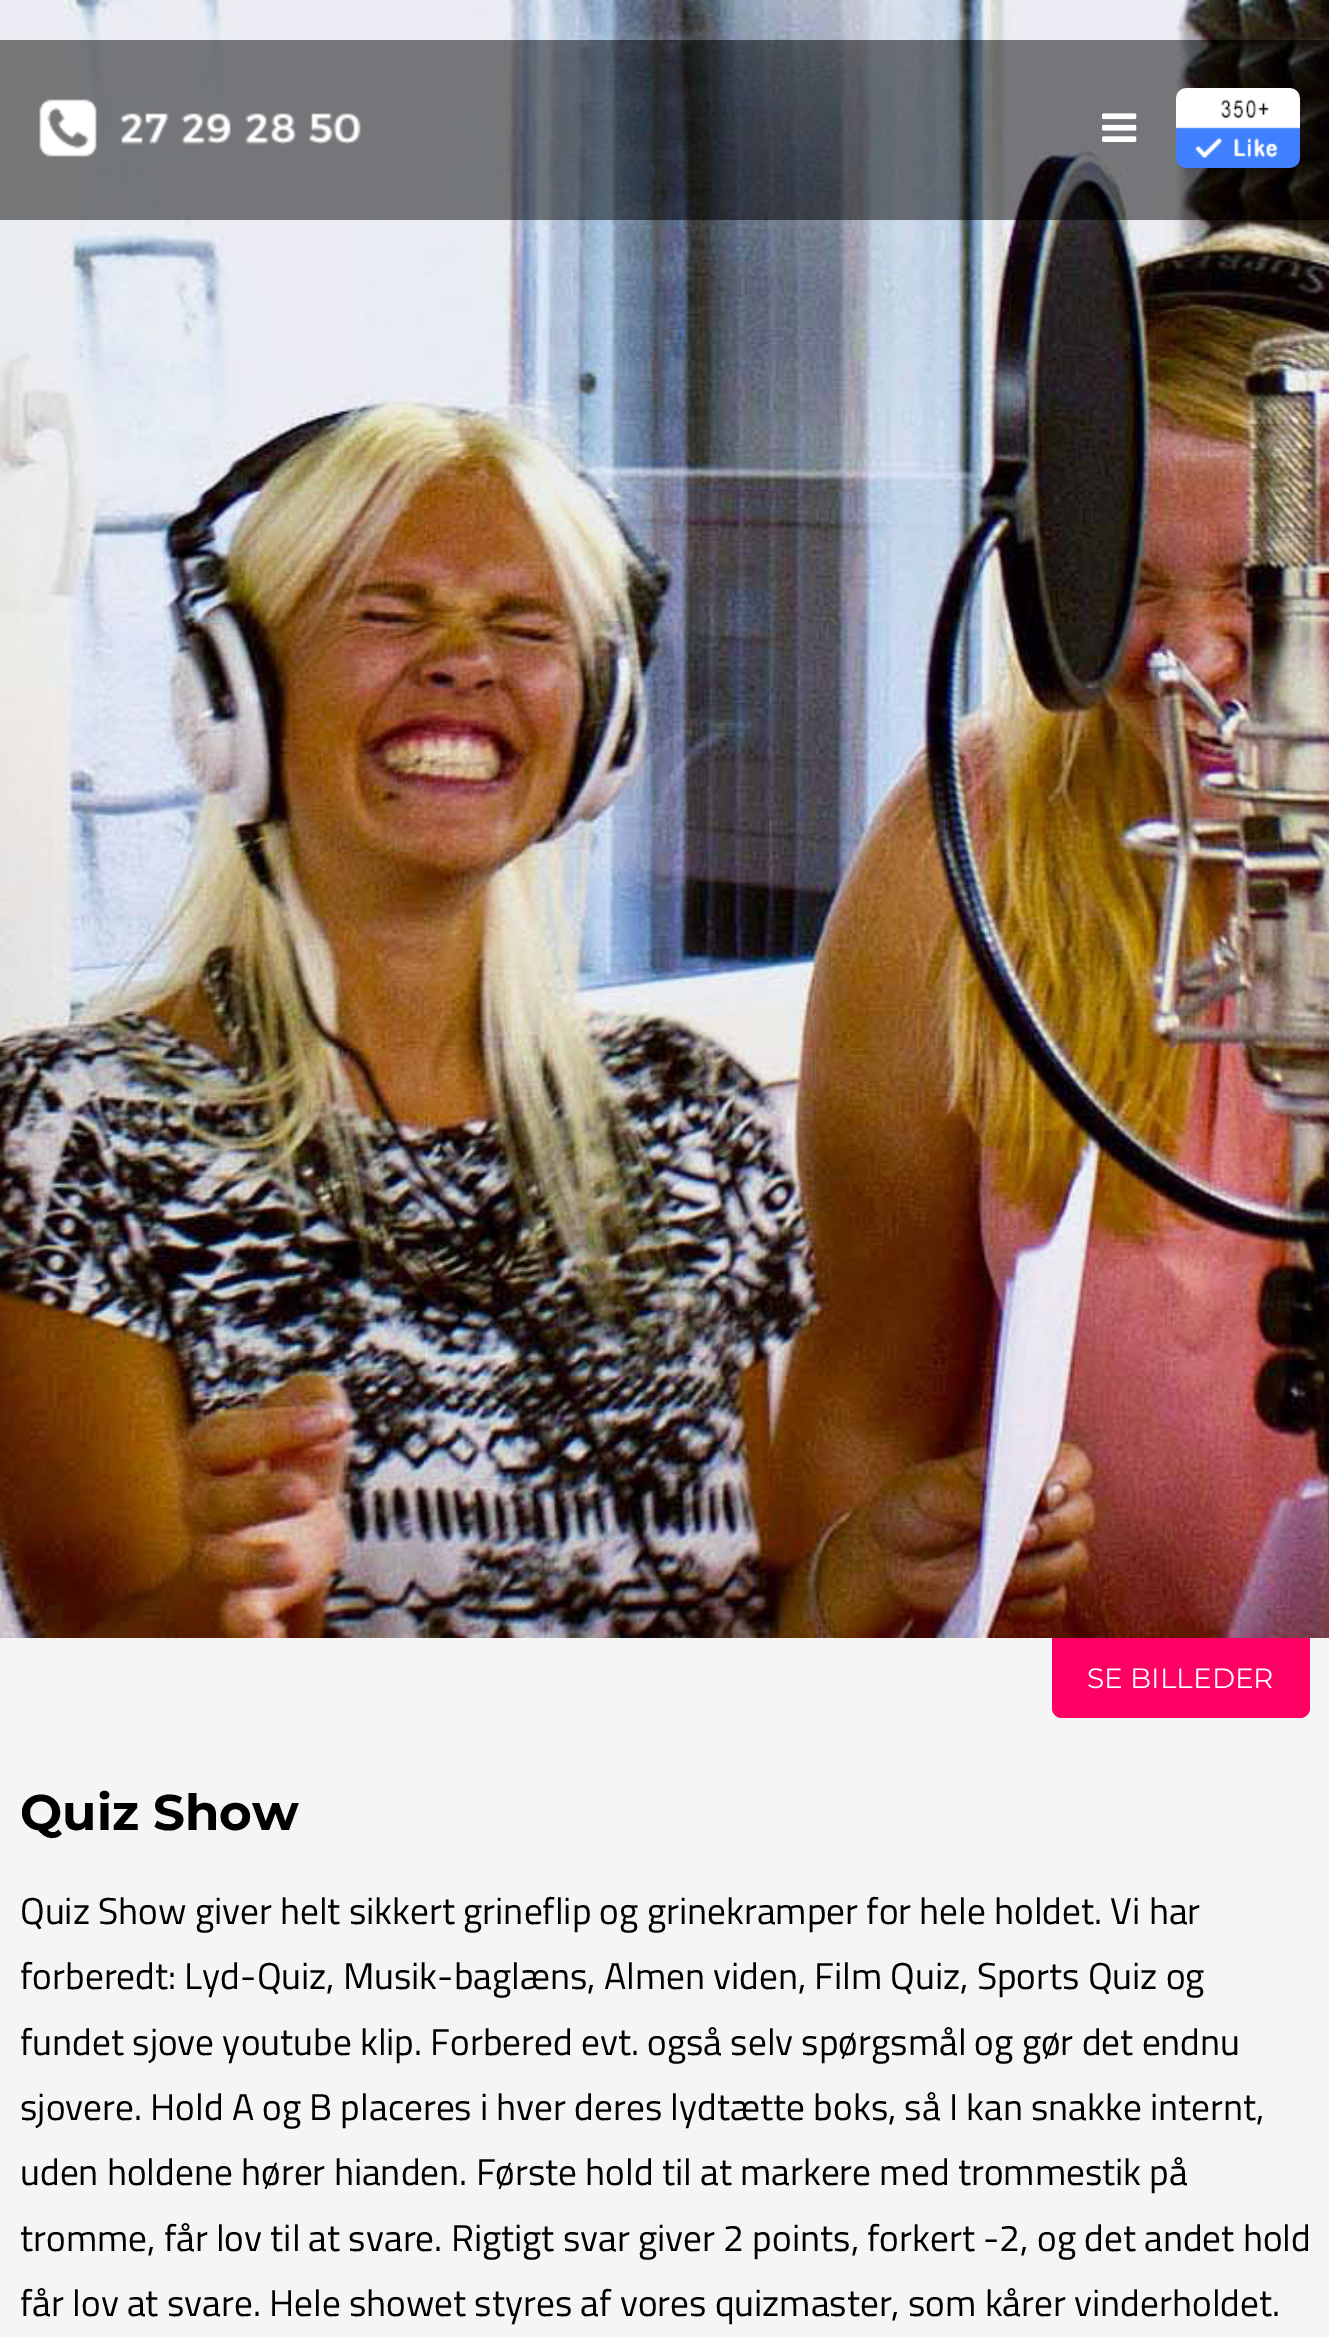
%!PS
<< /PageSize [1329 2337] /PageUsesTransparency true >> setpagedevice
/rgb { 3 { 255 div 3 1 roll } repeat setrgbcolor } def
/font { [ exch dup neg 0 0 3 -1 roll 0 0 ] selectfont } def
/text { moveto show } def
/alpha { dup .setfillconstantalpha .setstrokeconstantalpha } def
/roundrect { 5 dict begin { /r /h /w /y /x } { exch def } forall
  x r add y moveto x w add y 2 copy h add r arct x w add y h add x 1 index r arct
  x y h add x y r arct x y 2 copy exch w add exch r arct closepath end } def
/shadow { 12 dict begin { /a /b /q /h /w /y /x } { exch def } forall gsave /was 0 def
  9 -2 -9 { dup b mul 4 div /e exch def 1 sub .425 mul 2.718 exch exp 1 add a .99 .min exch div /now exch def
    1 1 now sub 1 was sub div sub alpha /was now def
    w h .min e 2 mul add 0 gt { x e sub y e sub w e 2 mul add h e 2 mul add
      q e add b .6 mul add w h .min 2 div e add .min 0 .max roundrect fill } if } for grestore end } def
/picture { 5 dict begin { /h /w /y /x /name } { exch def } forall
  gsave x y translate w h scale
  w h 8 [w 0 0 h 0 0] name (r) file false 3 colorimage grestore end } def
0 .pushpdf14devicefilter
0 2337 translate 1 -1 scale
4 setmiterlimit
255 255 255 rgb
0 0 1329 2337 rectfill
(img_01.rgb) 0 0 1329 1638 picture
gsave
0 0 moveto 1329 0 rlineto 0 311 rlineto -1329 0 rlineto closepath 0 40 moveto 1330 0 rlineto 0 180 rlineto -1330 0 rlineto closepath eoclip newpath
0 40 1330 180 0 30 0.1 shadow
grestore
0.5 alpha
0 0 0 rgb
0 40 1329 180 rectfill
1 alpha
(img_02.rgb) 39 99 322 58 picture
(img_03.rgb) 1102 113 35 29 picture
(img_04.rgb) 1176 88 124 80 picture
245 245 245 rgb
0 1638 1329 699 rectfill
255 0 100 rgb
1052 1638 moveto 258 0 rlineto 0 70 rlineto 0 5.5 -4.5 10 -10 10 rcurveto -238 0 rlineto -5.5 0 -10 -4.5 -10 -10 rcurveto closepath fill
/Montserrat-Regular 28 font
255 255 255 rgb
(SE BILLEDER) 1087 1688 text
/Montserrat-Bold 50 font
0 0 0 rgb
(Quiz Show) 20 1830 text
/TitilliumWeb-Regular 37.35 font
(Quiz Show giver helt sikkert grineflip og grinekramper for hele holdet. Vi har) 20 1924 text
(forberedt: Lyd-Quiz, Musik-baglæns, Almen viden, Film Quiz, Sports Quiz og) 20 1989 text
(fundet sjove youtube klip. Forbered evt. også selv spørgsmål og gør det endnu) 20 2055 text
(sjovere. Hold A og B placeres i hver deres lydtætte boks, så I kan snakke internt,) 20 2120 text
(uden holdene hører hianden. Første hold til at markere med trommestik på) 20 2185 text
(tromme, får lov til at svare. Rigtigt svar giver 2 points, forkert -2, og det andet hold) 20 2251 text
(får lov at svare. Hele showet styres af vores quizmaster, som kårer vinderholdet.) 20 2316 text
.poppdf14devicefilter showpage
